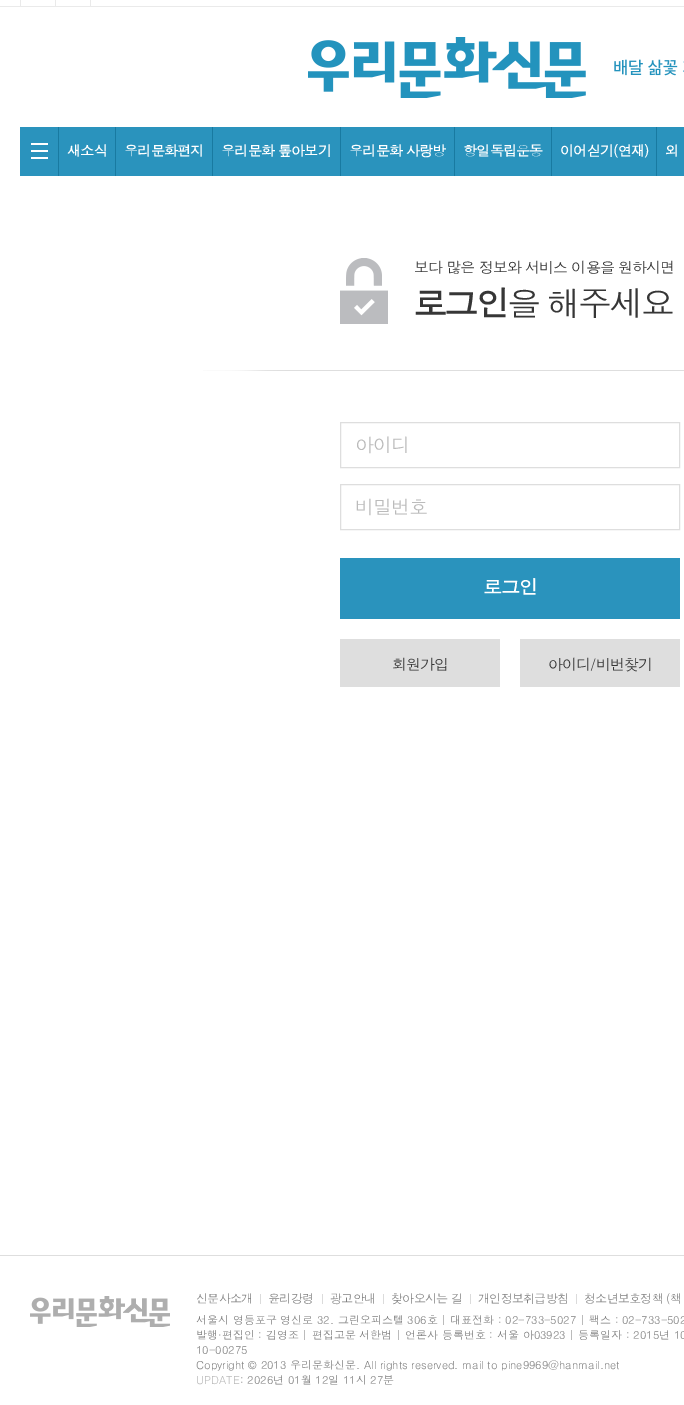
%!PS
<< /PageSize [684 1405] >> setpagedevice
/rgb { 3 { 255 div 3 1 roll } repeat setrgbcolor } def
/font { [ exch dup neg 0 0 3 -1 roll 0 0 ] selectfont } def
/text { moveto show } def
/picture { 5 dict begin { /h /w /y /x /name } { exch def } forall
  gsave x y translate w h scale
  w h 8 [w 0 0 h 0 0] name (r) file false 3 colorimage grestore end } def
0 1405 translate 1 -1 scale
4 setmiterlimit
255 255 255 rgb
0 0 684 1405 rectfill
234 234 234 rgb
0 6 684 1 rectfill
90 0 1 6 rectfill
20 0 1 6 rectfill
55 0 1 6 rectfill
(img_01.rgb) 308 37 376 61 picture
42 147 189 rgb
20 127 664 49 rectfill
24 122 161 rgb
58 127 1 49 rectfill
255 255 255 rgb
31 150 17 2 rectfill
31 143 17 2 rectfill
31 157 17 2 rectfill
24 122 161 rgb
115 127 1 49 rectfill
212 127 1 49 rectfill
340 127 1 49 rectfill
454 127 1 49 rectfill
551 127 1 49 rectfill
656 127 1 49 rectfill
(img_02.rgb) 203 370 481 1 picture
(img_03.rgb) 340 258 48 66 picture
222 222 222 rgb
340.5 422.5 339 45 rectstroke
340.5 484.5 339 45 rectstroke
42 147 189 rgb
340 558 340 61 rectfill
222 222 222 rgb
340 639 160 48 rectfill
520 639 160 48 rectfill
0 1255 684 1 rectfill
(img_04.rgb) 30 1296 140 31 picture
219 219 219 rgb
260 1294 1 10 rectfill
322 1294 1 10 rectfill
383 1294 1 10 rectfill
470 1294 1 10 rectfill
576 1294 1 10 rectfill
/Dotum-Bold 14 font
255 255 255 rgb
67 156 moveto -0.75 0 (새소식) ashow
124 156 moveto -0.75 0 (우리문화편지) ashow
221 156 moveto -0.75 0 (우리문화 톺아보기) ashow
349 156 moveto -0.75 0 (우리문화 사랑방) ashow
463 156 moveto -0.75 0 (항일독립운동) ashow
560 156 moveto -0.75 0 (이어싣기\(연재\)) ashow
665 156 moveto -0.75 0 (외) ashow
/Dotum-Regular 15 font
54 54 54 rgb
414 273 moveto -0.9 0 (보다 많은 정보와 서비스 이용을 원하시면) ashow
/Dotum-Bold 34 font
413 316 moveto -2.75 0 (로그인) ashow
/Dotum-Regular 34 font
507 316 moveto -2.75 0 (을 해주세요) ashow
/Dotum-Regular 19 font
187 187 187 rgb
355 452 moveto -1 0 (아이디) ashow
355 514 moveto -1 0 (비밀번호) ashow
/Dotum-Bold 19 font
255 255 255 rgb
483 594 moveto -1 0 (로그인) ashow
/Dotum-Regular 15 font
54 54 54 rgb
392 670 moveto -0.9 0 (회원가입) ashow
548 670 moveto -0.9 0 (아이디/비번찾기) ashow
/Dotum-Regular 12 font
128 128 128 rgb
196 1303 moveto -0.75 0 (신문사소개) ashow
268 1303 moveto -0.75 0 (윤리강령) ashow
330 1303 moveto -0.75 0 (광고안내) ashow
391 1303 moveto -0.75 0 (찾아오시는 길) ashow
478 1303 moveto -0.75 0 (개인정보취급방침) ashow
584 1303 moveto -0.75 0 (청소년보호정책 \(책) ashow
/Dotum-Regular 11 font
(서울시 영등포구 영신로 32. 그린오피스텔 306호 | 대표전화 : 02-733-5027 | 팩스 : 02-733-502) 196 1324 text
(발행·편집인 : 김영조 | 편집고문 서한범 | 언론사 등록번호 : 서울 아03923 | 등록일자 : 2015년 10) 196 1339 text
(10-00275) 196 1354 text
(Copyright © 2013 우리문화신문. All rights reserved. mail to pine9969@hanmail.net) 196 1369 text
187 187 187 rgb
(UPDATE) 196 1384 text
128 128 128 rgb
(: 2026년 01월 12일 11시 27분) 240 1384 text
showpage
